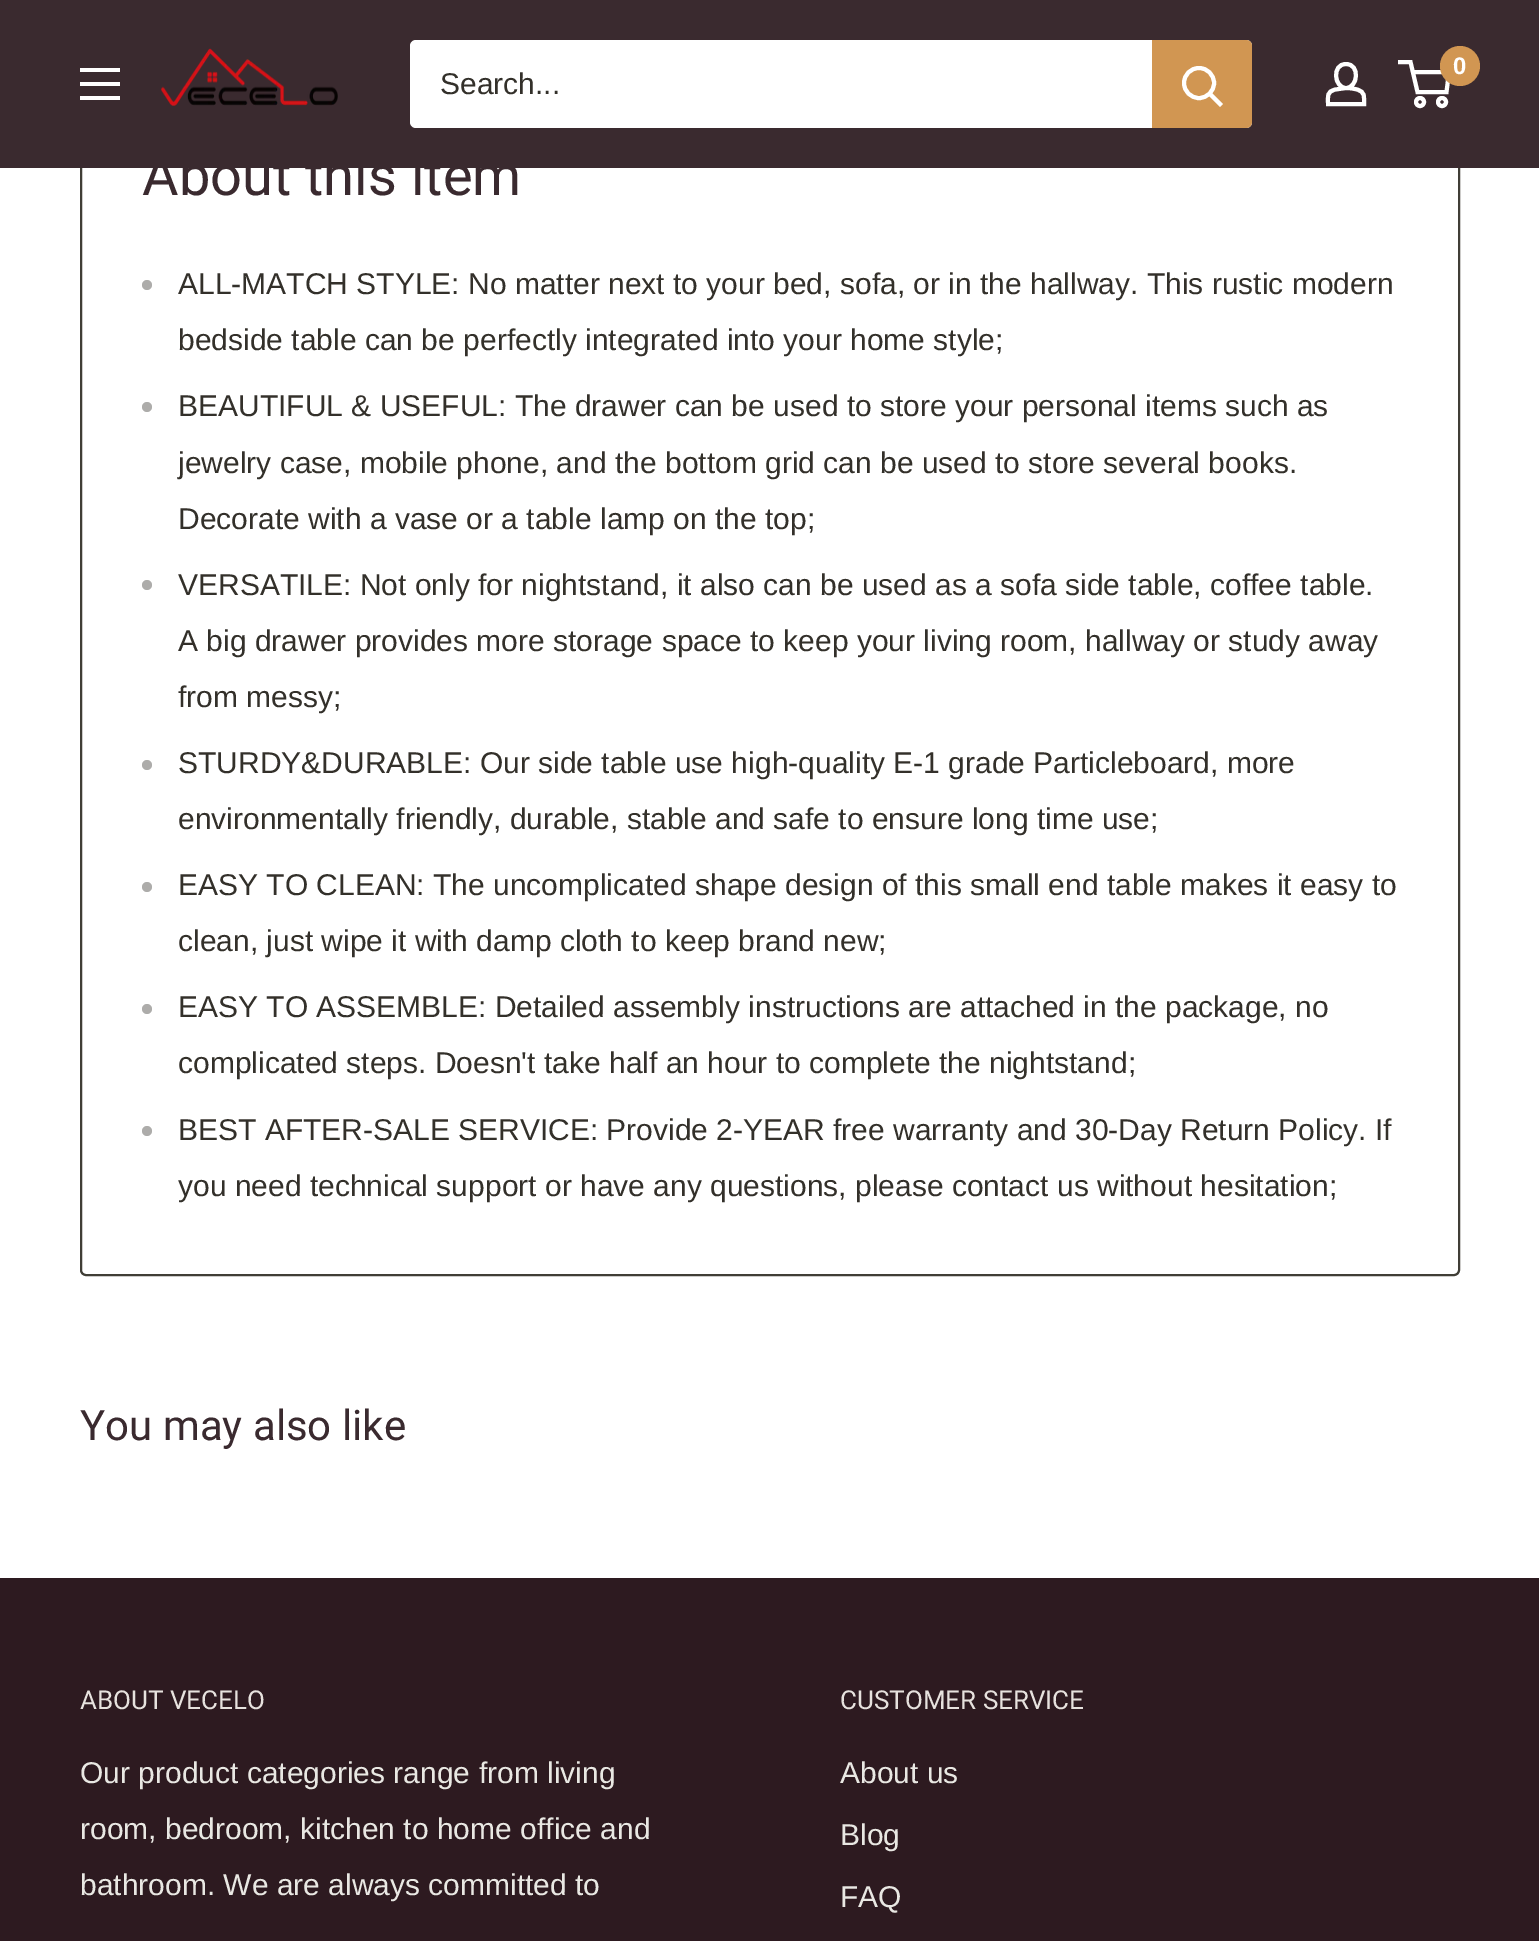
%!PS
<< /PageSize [1539 1941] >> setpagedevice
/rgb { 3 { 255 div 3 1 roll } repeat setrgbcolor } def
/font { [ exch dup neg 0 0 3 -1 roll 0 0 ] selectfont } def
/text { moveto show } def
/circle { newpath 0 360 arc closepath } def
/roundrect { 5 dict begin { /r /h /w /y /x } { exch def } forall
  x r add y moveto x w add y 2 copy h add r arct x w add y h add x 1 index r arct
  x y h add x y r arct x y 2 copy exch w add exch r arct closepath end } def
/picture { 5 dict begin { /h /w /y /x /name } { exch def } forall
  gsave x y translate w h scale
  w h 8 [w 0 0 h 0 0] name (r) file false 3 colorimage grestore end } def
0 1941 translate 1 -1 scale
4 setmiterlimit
255 255 255 rgb
0 0 1539 1941 rectfill
64 62 54 rgb
2 setlinewidth
81 -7 1378 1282 5 roundrect stroke
58 42 47 rgb
0 0 1539 168 rectfill
(img_01.rgb) 161 48 177 58 picture
255 255 255 rgb
4 setlinewidth
1346 88 moveto 4 0 7.5 0.5 11 1.5 rcurveto 8.5 2.5 7 7 7 14.5 rcurveto -36 0 rlineto 0 -8 -1.5 -12.5 7.5 -14.5 rcurveto closepath 1346 88 moveto -12 0 -14.5 -24 0 -24 rcurveto 14.5 0 12 24 0 24 rcurveto closepath stroke
1420 102 4 circle stroke
1442 102 4 circle stroke
1412.5 72 moveto 36.5 0 rlineto -2.5 20 rlineto -29 0 rlineto -7 -30 rlineto -12.5 0 rlineto stroke
209 150 82 rgb
1460 66 20 circle fill
255 255 255 rgb
80 96 moveto 40 0 rlineto 0 4 rlineto -40 0 rlineto closepath 80 68 moveto 40 0 rlineto 0 4 rlineto -40 0 rlineto closepath 80 82 moveto 40 0 rlineto 0 4 rlineto -40 0 rlineto closepath eofill
410 40 842 88 6 roundrect fill
209 150 82 rgb
1152 40 moveto 94 0 rlineto 3.5 0 6 2.5 6 6 rcurveto 0 76 rlineto 0 3.5 -2.5 6 -6 6 rcurveto -94 0 rlineto closepath fill
255 255 255 rgb
2 setlinecap
1220 104 moveto -10 -10 rlineto stroke
0 setlinecap
1199 83 15 circle stroke
173 172 170 rgb
147 285 5 circle fill
147 407 5 circle fill
147 585 5 circle fill
147 765 5 circle fill
147 887 5 circle fill
147 1009 5 circle fill
147 1131 5 circle fill
45 26 32 rgb
0 1578 1539 363 rectfill
/LiberationSans-Bold 24 font
255 255 255 rgb
(0) 1453 74 text
/LiberationSans-Regular 30 font
51 48 42 rgb
(Search...) 440 94 text
/Roboto-Regular 56 font
58 42 47 rgb
(About this item) 142 195 text
/LiberationSans-Regular 30 font
51 48 42 rgb
(ALL-MATCH STYLE: No matter next to your bed, sofa, or in the hallway. This rustic modern) 178 294 text
(bedside table can be perfectly integrated into your home style;) 178 350 text
(BEAUTIFUL & USEFUL: The drawer can be used to store your personal items such as) 178 416 text
(jewelry case, mobile phone, and the bottom grid can be used to store several books.) 178 473 text
(Decorate with a vase or a table lamp on the top;) 178 529 text
(VERSATILE: Not only for nightstand, it also can be used as a sofa side table, coffee table.) 178 595 text
(A big drawer provides more storage space to keep your living room, hallway or study away) 178 651 text
(from messy;) 178 707 text
(STURDY&DURABLE: Our side table use high-quality E-1 grade Particleboard, more) 178 773 text
(environmentally friendly, durable, stable and safe to ensure long time use;) 178 829 text
(EASY TO CLEAN: The uncomplicated shape design of this small end table makes it easy to) 178 895 text
(clean, just wipe it with damp cloth to keep brand new;) 178 951 text
(EASY TO ASSEMBLE: Detailed assembly instructions are attached in the package, no) 178 1017 text
(complicated steps. Doesn't take half an hour to complete the nightstand;) 178 1073 text
(BEST AFTER-SALE SERVICE: Provide 2-YEAR free warranty and 30-Day Return Policy. If) 178 1140 text
(you need technical support or have any questions, please contact us without hesitation;) 178 1196 text
/Roboto-Regular 42 font
58 42 47 rgb
(You may also like) 80 1440 text
/Roboto-Regular 26 font
231 226 222 rgb
(ABOUT VECELO) 80 1709 text
/LiberationSans-Regular 30 font
233 232 227 rgb
(Our product categories range from living) 80 1783 text
(room, bedroom, kitchen to home office and) 80 1839 text
(bathroom. We are always committed to) 80 1895 text
/Roboto-Regular 26 font
231 226 222 rgb
(CUSTOMER SERVICE) 840 1709 text
/LiberationSans-Regular 30 font
233 232 227 rgb
(About us) 840 1783 text
(Blog) 840 1845 text
(FAQ) 840 1907 text
showpage
